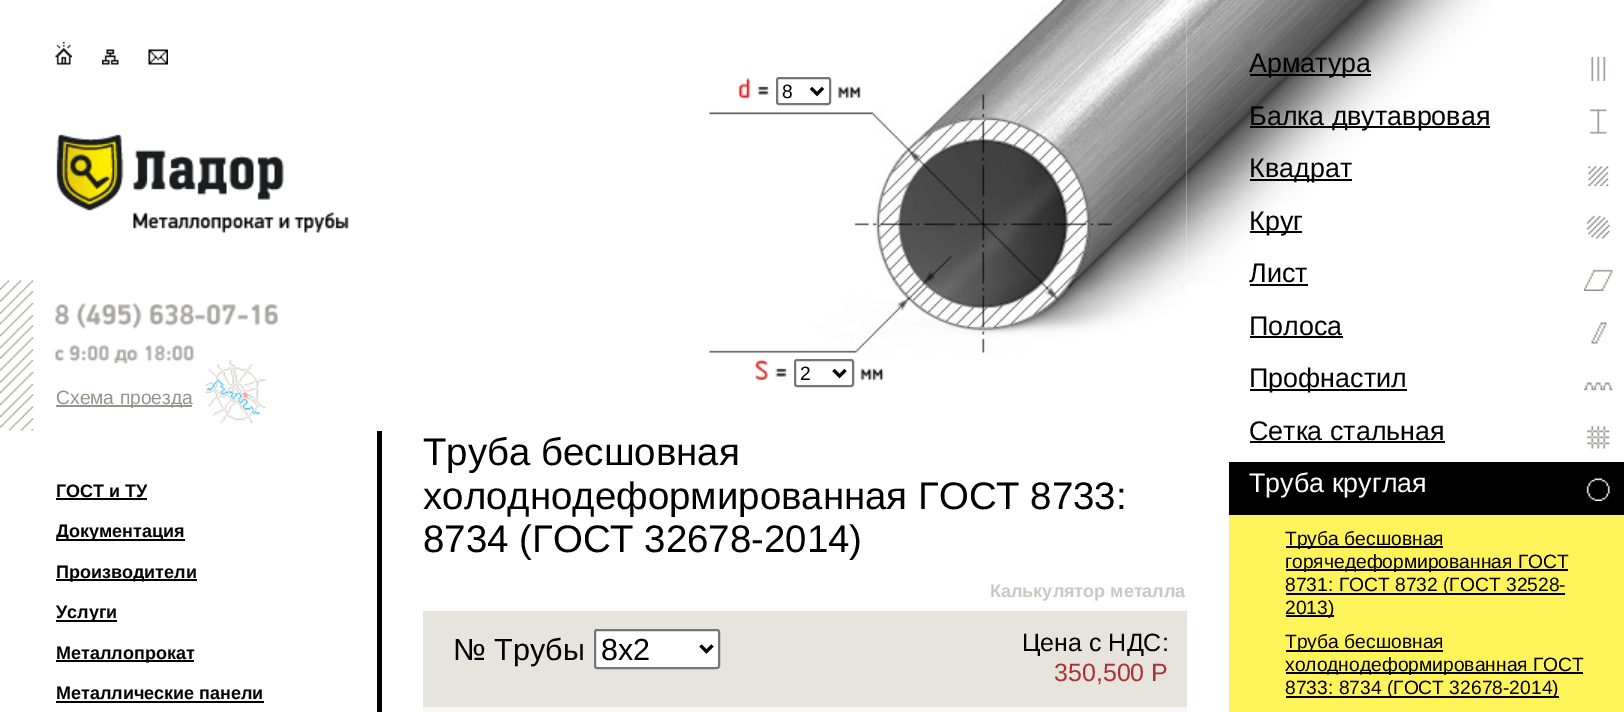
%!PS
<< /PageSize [1624 712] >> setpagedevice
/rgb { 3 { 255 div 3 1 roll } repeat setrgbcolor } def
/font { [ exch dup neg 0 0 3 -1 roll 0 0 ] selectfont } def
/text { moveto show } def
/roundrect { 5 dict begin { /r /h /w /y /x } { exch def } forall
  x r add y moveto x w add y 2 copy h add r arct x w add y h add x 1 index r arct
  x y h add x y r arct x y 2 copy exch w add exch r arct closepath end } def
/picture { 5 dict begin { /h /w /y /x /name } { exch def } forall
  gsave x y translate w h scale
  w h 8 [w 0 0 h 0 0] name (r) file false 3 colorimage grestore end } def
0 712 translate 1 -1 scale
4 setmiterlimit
255 255 255 rgb
0 0 1624 712 rectfill
(img_01.rgb) 709 0 478 355 picture
(img_02.rgb) 738 77 13 23 picture
(img_03.rgb) 757 86 12 9 picture
118 118 118 rgb
2 setlinewidth
777 78 53 26 2 roundrect stroke
0 0 0 rgb
3 setlinewidth
811 88 moveto 6 6 rlineto 6 -6 rlineto stroke
(img_04.rgb) 838 86 23 13 picture
(img_05.rgb) 754 359 15 23 picture
(img_06.rgb) 775 368 12 9 picture
118 118 118 rgb
2 setlinewidth
795 360 58 26 2 roundrect stroke
0 0 0 rgb
3 setlinewidth
833.5 370 moveto 6 6 rlineto 6 -6 rlineto stroke
(img_07.rgb) 860 368 24 13 picture
(img_08.rgb) 55 42 17 23 picture
(img_09.rgb) 102 49 17 16 picture
(img_10.rgb) 148 49 20 16 picture
(img_11.rgb) 56 134 293 99 picture
(img_12.rgb) 0 280 278 151 picture
152 148 140 rgb
56 405 136 2 rectfill
0 0 0 rgb
56 498 91 2 rectfill
56 539 129 2 rectfill
56 579 141 2 rectfill
56 620 61 2 rectfill
56 660 138 2 rectfill
56 701 208 2 rectfill
377 431 5 281 rectfill
231 228 222 rgb
423 611 764 96 rectfill
255 255 255 rgb
595 630 124 38 2 roundrect gsave fill grestore
118 118 118 rgb
2 setlinewidth
stroke
0 0 0 rgb
3 setlinewidth
700.5 645.5 moveto 6 6 rlineto 6 -6 rlineto stroke
247 246 244 rgb
423 707 764 5 rectfill
(img_13.rgb) 1186 0 303 286 picture
(img_14.rgb) 1591 57 15 24 picture
0 0 0 rgb
1250 74 121 2 rectfill
(img_15.rgb) 1589 109 18 25 picture
1250 126 240 2 rectfill
(img_16.rgb) 1588 166 21 20 picture
1250 179 102 2 rectfill
(img_17.rgb) 1586 215 24 24 picture
1250 231 52 2 rectfill
(img_18.rgb) 1584 269 29 22 picture
1250 284 58 2 rectfill
(img_19.rgb) 1591 322 16 22 picture
1250 336 93 2 rectfill
(img_20.rgb) 1584 382 29 9 picture
1250 389 157 2 rectfill
(img_21.rgb) 1586 425 24 24 picture
1250 441 195 2 rectfill
1229 462 395 53 rectfill
(img_22.rgb) 1586 478 24 23 picture
255 243 90 rgb
1229 515 395 197 rectfill
0 0 0 rgb
1286 546 157 2 rectfill
1286 569 282 2 rectfill
1286 593 279 2 rectfill
1286 615 48 2 rectfill
1286 650 157 2 rectfill
1286 672 297 2 rectfill
1286 696 273 2 rectfill
/LiberationSans-Regular 19.25 font
(8) 782 98 text
(2) 800 380 text
152 148 140 rgb
(Схема проезда) 56 404 text
/LiberationSans-Bold 18 font
0 0 0 rgb
(ГОСТ и ТУ) 56 497 text
(Документация) 56 537 text
(Производители) 56 578 text
(Услуги) 56 618 text
(Металлопрокат) 56 659 text
(Металлические панели) 56 699 text
/LiberationSans-Regular 38.4 font
(Труба бесшовная) 423 465 text
(холоднодеформированная ГОСТ 8733:) 423 509 text
(8734 \(ГОСТ 32678-2014\)) 423 552 text
/LiberationSans-Bold 18 font
203 200 193 rgb
(Калькулятор металла) 990 597 text
/LiberationSans-Regular 30.5 font
0 0 0 rgb
(№ Трубы) 453 660 text
(8х2) 601 660 text
/LiberationSans-Regular 25 font
(Цена с НДС:) 1022 651 text
173 50 50 rgb
(350,500 P) 1054 681 text
/LiberationSans-Regular 26.9 font
0 0 0 rgb
(Арматура) 1249 72 text
(Балка двутавровая) 1249 125 text
(Квадрат) 1249 177 text
(Круг) 1249 230 text
(Лист) 1249 282 text
(Полоса) 1249 335 text
(Профнастил) 1249 387 text
(Сетка стальная) 1249 440 text
255 255 255 rgb
(Труба круглая) 1249 492 text
/LiberationSans-Regular 19.25 font
0 0 0 rgb
(Труба бесшовная) 1285 545 text
(горячедеформированная ГОСТ) 1285 568 text
(8731: ГОСТ 8732 \(ГОСТ 32528-) 1285 591 text
(2013\)) 1285 614 text
(Труба бесшовная) 1285 648 text
(холоднодеформированная ГОСТ) 1285 671 text
(8733: 8734 \(ГОСТ 32678-2014\)) 1285 694 text
showpage
